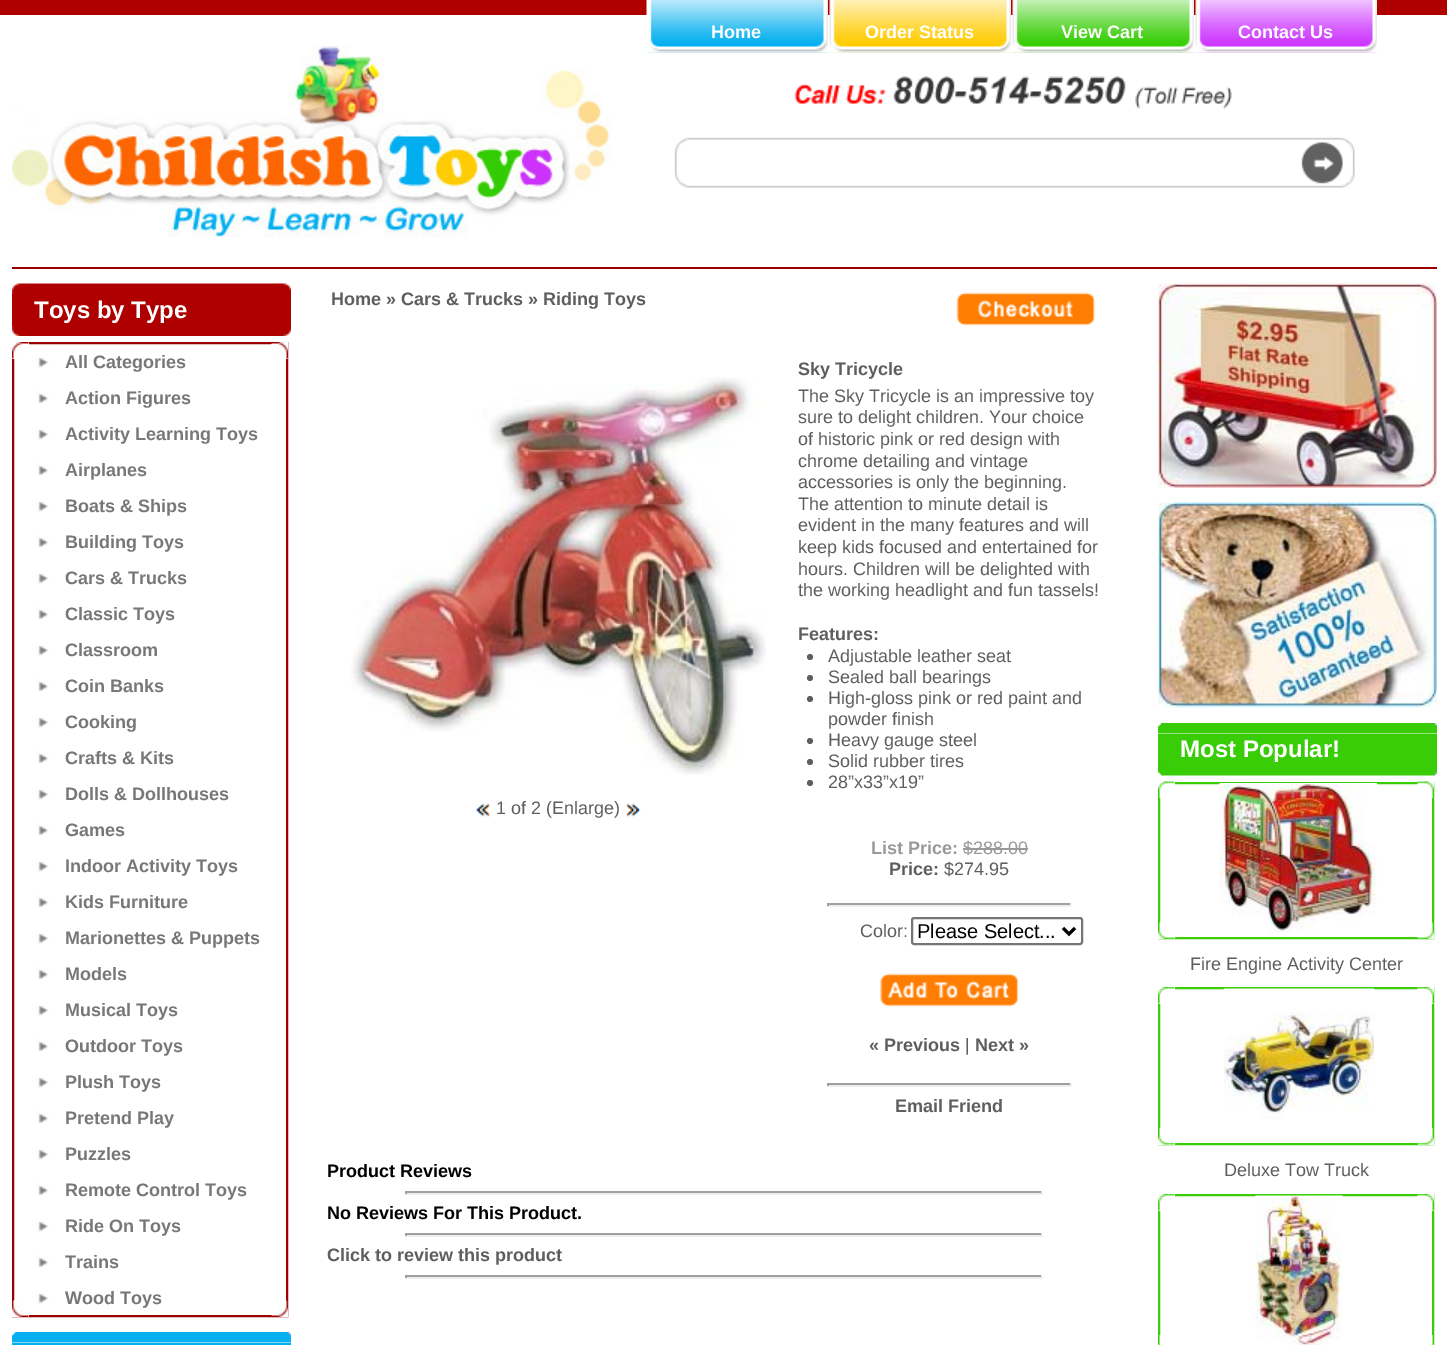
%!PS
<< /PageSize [1447 1345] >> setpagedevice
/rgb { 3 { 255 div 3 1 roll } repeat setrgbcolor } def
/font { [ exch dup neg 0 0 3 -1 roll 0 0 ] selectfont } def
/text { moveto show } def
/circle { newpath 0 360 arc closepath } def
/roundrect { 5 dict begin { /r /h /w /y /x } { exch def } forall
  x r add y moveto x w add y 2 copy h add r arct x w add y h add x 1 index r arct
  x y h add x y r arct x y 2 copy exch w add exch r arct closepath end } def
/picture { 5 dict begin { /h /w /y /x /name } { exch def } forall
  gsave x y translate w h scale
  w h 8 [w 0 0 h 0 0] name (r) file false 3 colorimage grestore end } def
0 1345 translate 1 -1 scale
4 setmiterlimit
255 255 255 rgb
0 0 1447 1345 rectfill
175 0 0 rgb
0 0 1447 15 rectfill
154 0 0 rgb
12 267 1425 2 rectfill
191 235 251 rgb
647 52 181 1 rectfill
(img_01.rgb) 646 0 182 53 picture
255 241 187 rgb
830 52 181 1 rectfill
(img_02.rgb) 829 0 182 53 picture
195 240 180 rgb
1013 52 181 1 rectfill
(img_03.rgb) 1012 0 182 53 picture
241 198 255 rgb
1196 52 181 1 rectfill
(img_04.rgb) 1195 0 182 53 picture
(img_05.rgb) 12 45 600 192 picture
(img_06.rgb) 794 76 438 33 picture
(img_07.rgb) 674 137 681 51 picture
(img_08.rgb) 1301 141 45 44 picture
(img_09.rgb) 12 283 279 11 picture
175 0 0 rgb
12 294 279 32 rectfill
(img_10.rgb) 12 325 279 11 picture
154 0 0 rgb
2 setlinewidth
13 343 274 973 rectstroke
255 255 255 rgb
12 342 17 17 rectfill
(img_11.rgb) 12 342 17 17 picture
286 358 2 1 rectfill
(img_12.rgb) 271 342 17 17 picture
28 1315 1 2 rectfill
(img_13.rgb) 12 1300 17 17 picture
(img_14.rgb) 36 355 13 13 picture
(img_14.rgb) 36 391 13 13 picture
(img_14.rgb) 36 427 13 13 picture
(img_14.rgb) 36 463 13 13 picture
(img_14.rgb) 36 499 13 13 picture
(img_14.rgb) 36 535 13 13 picture
(img_14.rgb) 36 571 13 13 picture
(img_14.rgb) 36 607 13 13 picture
(img_14.rgb) 36 643 13 13 picture
(img_14.rgb) 36 679 13 13 picture
(img_14.rgb) 36 715 13 13 picture
(img_14.rgb) 36 751 13 13 picture
(img_14.rgb) 36 787 13 13 picture
(img_14.rgb) 36 823 13 13 picture
(img_14.rgb) 36 859 13 13 picture
(img_14.rgb) 36 895 13 13 picture
(img_14.rgb) 36 931 13 13 picture
(img_14.rgb) 36 967 13 13 picture
(img_14.rgb) 36 1003 13 13 picture
(img_14.rgb) 36 1039 13 13 picture
(img_14.rgb) 36 1075 13 13 picture
(img_14.rgb) 36 1111 13 13 picture
(img_14.rgb) 36 1147 13 13 picture
(img_14.rgb) 36 1183 13 13 picture
(img_14.rgb) 36 1219 13 13 picture
(img_14.rgb) 36 1255 13 13 picture
(img_14.rgb) 36 1291 13 13 picture
(img_15.rgb) 271 1300 17 17 picture
(img_16.rgb) 12 1332 279 11 picture
6 176 239 rgb
12 1343 279 2 rectfill
(img_17.rgb) 956 292 140 34 picture
(img_18.rgb) 351 377 415 398 picture
(img_19.rgb) 475 803 15 14 picture
(img_20.rgb) 626 803 15 14 picture
94 94 94 rgb
810 657 3 circle fill
810 678 3 circle fill
810 699 3 circle fill
810 741 3 circle fill
810 762 3 circle fill
810 783 3 circle fill
153 153 153 rgb
963 848 65 2 rectfill
159 159 159 rgb
827 903 244 2 rectfill
238 238 238 rgb
1070 903 2 3 rectfill
827 905 244 2 rectfill
159 159 159 rgb
827 903 2 3 rectfill
118 118 118 rgb
912 918 170 26 2 roundrect stroke
0 0 0 rgb
3 setlinewidth
1063 928 moveto 6 6 rlineto 6 -6 rlineto stroke
(img_21.rgb) 880 973 139 34 picture
159 159 159 rgb
827 1083 244 2 rectfill
238 238 238 rgb
1070 1083 2 3 rectfill
827 1085 244 2 rectfill
159 159 159 rgb
827 1083 2 3 rectfill
405 1191 638 2 rectfill
238 238 238 rgb
1041 1191 2 3 rectfill
405 1193 638 2 rectfill
159 159 159 rgb
405 1191 2 3 rectfill
405 1233 638 2 rectfill
238 238 238 rgb
1041 1233 2 3 rectfill
405 1235 638 2 rectfill
159 159 159 rgb
405 1233 2 3 rectfill
405 1275 638 2 rectfill
238 238 238 rgb
1041 1275 2 3 rectfill
405 1277 638 2 rectfill
159 159 159 rgb
405 1275 2 3 rectfill
(img_22.rgb) 1158 283 279 205 picture
(img_23.rgb) 1158 502 279 206 picture
(img_24.rgb) 1158 723 279 11 picture
56 205 6 rgb
1158 734 279 31 rectfill
(img_25.rgb) 1158 765 279 11 picture
2 setlinewidth
1159 783 274 155 rectstroke
255 255 255 rgb
1174 782 1 2 rectfill
(img_26.rgb) 1158 781 17 17 picture
(img_27.rgb) 1219 783 158 150 picture
(img_28.rgb) 1417 781 17 17 picture
1174 937 1 2 rectfill
(img_29.rgb) 1158 922 17 17 picture
(img_30.rgb) 1417 922 17 17 picture
56 205 6 rgb
1159 988 274 156 rectstroke
255 255 255 rgb
1158 987 17 17 rectfill
(img_31.rgb) 1158 987 17 17 picture
(img_32.rgb) 1224 988 150 132 picture
1432 1003 2 1 rectfill
(img_33.rgb) 1417 987 17 17 picture
1158 1128 17 17 rectfill
(img_34.rgb) 1158 1128 17 17 picture
1418 1144 16 1 rectfill
(img_35.rgb) 1417 1128 17 17 picture
56 205 6 rgb
1159 1195 274 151 rectstroke
255 255 255 rgb
1158 1194 17 17 rectfill
(img_31.rgb) 1158 1194 17 17 picture
(img_36.rgb) 1255 1195 88 150 picture
1432 1210 2 1 rectfill
(img_33.rgb) 1417 1194 17 17 picture
(img_37.rgb) 1158 1335 4 10 picture
(img_38.rgb) 1430 1335 4 10 picture
/LiberationSans-Bold 18 font
(Home) 711 38 text
(Order Status) 865 38 text
(View Cart) 1061 38 text
(Contact Us) 1238 38 text
/LiberationSans-Bold 24 font
(Toys by Type) 34 318 text
/LiberationSans-Bold 18 font
119 119 119 rgb
(All Categories) 65 368 text
(Action Figures) 65 404 text
(Activity Learning Toys) 65 440 text
(Airplanes) 65 476 text
(Boats & Ships) 65 512 text
(Building Toys) 65 548 text
(Cars & Trucks) 65 584 text
(Classic Toys) 65 620 text
(Classroom) 65 656 text
(Coin Banks) 65 692 text
(Cooking) 65 728 text
(Crafts & Kits) 65 764 text
(Dolls & Dollhouses) 65 800 text
(Games) 65 836 text
(Indoor Activity Toys) 65 872 text
(Kids Furniture) 65 908 text
(Marionettes & Puppets) 65 944 text
(Models) 65 980 text
(Musical Toys) 65 1016 text
(Outdoor Toys) 65 1052 text
(Plush Toys) 65 1088 text
(Pretend Play) 65 1124 text
(Puzzles) 65 1160 text
(Remote Control Toys) 65 1196 text
(Ride On Toys) 65 1232 text
(Trains) 65 1268 text
(Wood Toys) 65 1304 text
94 94 94 rgb
(Home » Cars & Trucks » Riding Toys) 331 305 text
/LiberationSans-Regular 18 font
(1 of 2 \(Enlarge\)) 496 814 text
/LiberationSans-Bold 18 font
(Sky Tricycle) 798 375 text
/LiberationSans-Regular 18 font
(The Sky Tricycle is an impressive toy) 798 402 text
(sure to delight children. Your choice) 798 423 text
(of historic pink or red design with) 798 445 text
(chrome detailing and vintage) 798 467 text
(accessories is only the beginning.) 798 488 text
(The attention to minute detail is) 798 510 text
(evident in the many features and will) 798 531 text
(keep kids focused and entertained for) 798 553 text
(hours. Children will be delighted with) 798 575 text
(the working headlight and fun tassels!) 798 596 text
/LiberationSans-Bold 18 font
(Features:) 798 640 text
/LiberationSans-Regular 18 font
(Adjustable leather seat) 828 662 text
(Sealed ball bearings) 828 683 text
(High-gloss pink or red paint and) 828 704 text
(powder finish) 828 725 text
(Heavy gauge steel) 828 746 text
(Solid rubber tires) 828 767 text
(28”x33”x19”) 828 788 text
/LiberationSans-Bold 18 font
153 153 153 rgb
(List Price:) 871 854 text
/LiberationSans-Regular 18 font
($288.00) 963 854 text
/LiberationSans-Bold 18 font
94 94 94 rgb
(Price:) 889 875 text
/LiberationSans-Regular 18 font
($274.95) 944 875 text
(Color:) 860 937 text
/LiberationSans-Regular 20 font
0 0 0 rgb
(Please Select...) 917 938 text
/LiberationSans-Bold 18 font
94 94 94 rgb
(« Previous) 869 1051 text
/LiberationSans-Regular 18 font
(|) 965 1051 text
/LiberationSans-Bold 18 font
(Next ») 975 1051 text
(Email Friend) 895 1112 text
0 0 0 rgb
(Product Reviews) 327 1177 text
(No Reviews For This Product.) 327 1219 text
94 94 94 rgb
(Click to review this product) 327 1261 text
/LiberationSans-Bold 24 font
255 255 255 rgb
(Most Popular!) 1180 757 text
/LiberationSans-Regular 18 font
94 94 94 rgb
(Fire Engine Activity Center) 1190 970 text
(Deluxe Tow Truck) 1224 1176 text
showpage
